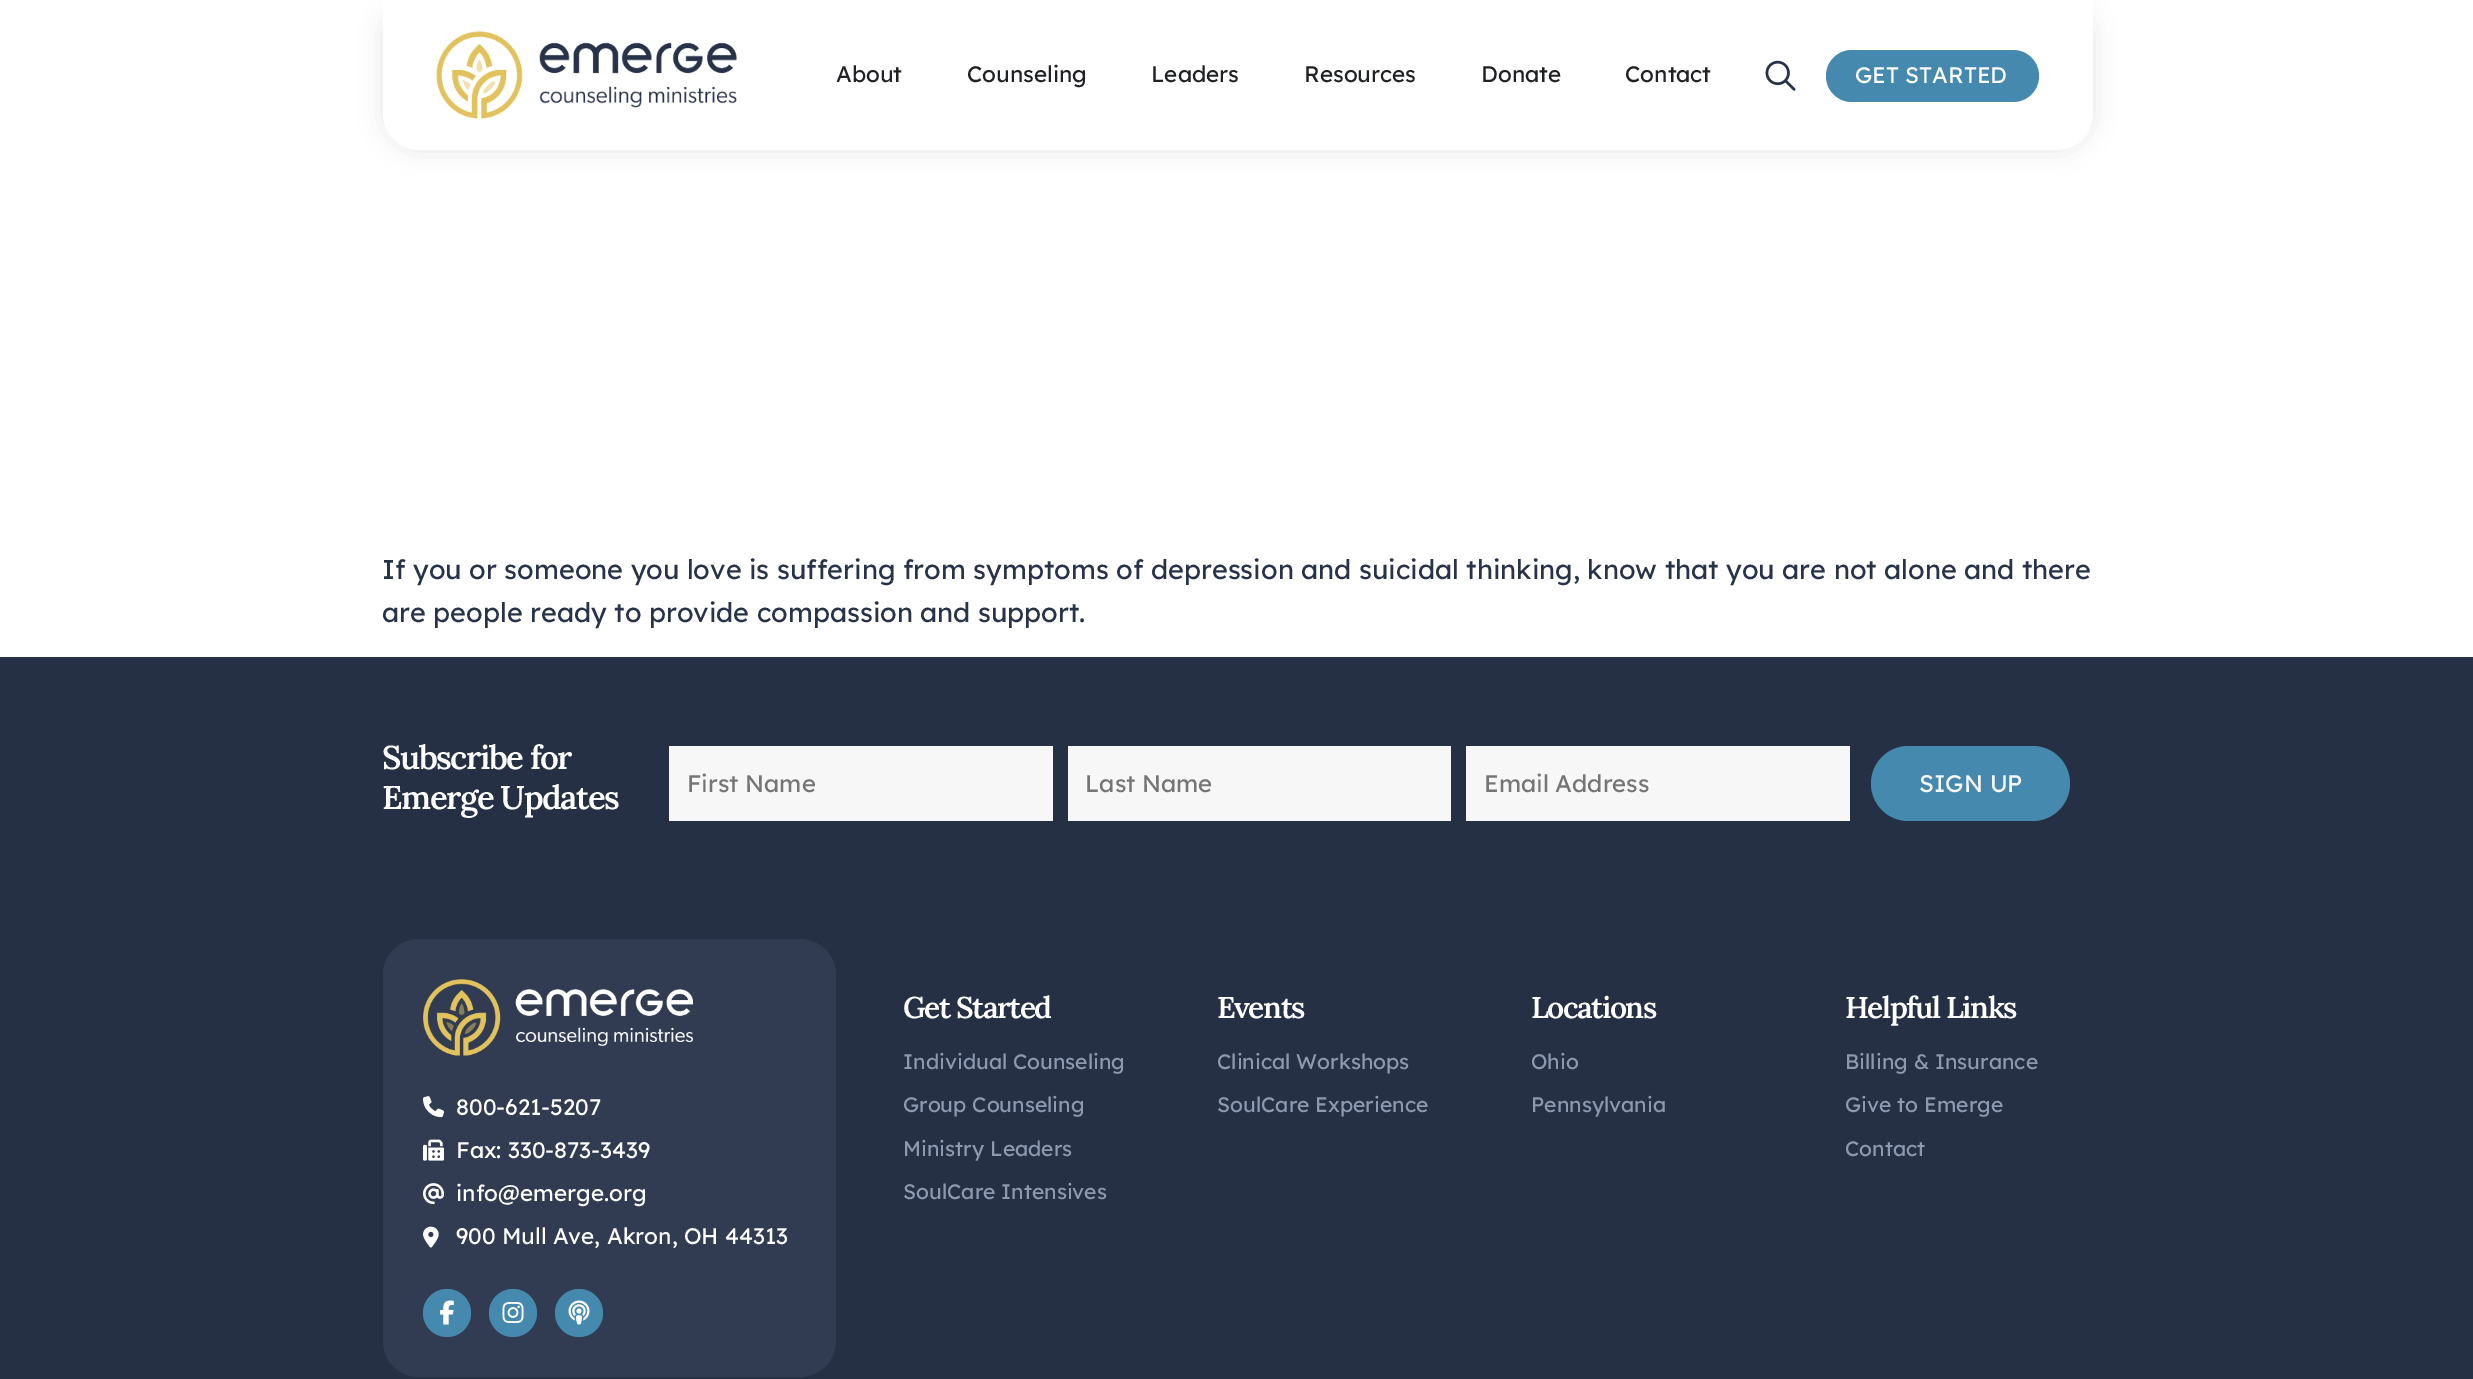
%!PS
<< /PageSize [2473 1379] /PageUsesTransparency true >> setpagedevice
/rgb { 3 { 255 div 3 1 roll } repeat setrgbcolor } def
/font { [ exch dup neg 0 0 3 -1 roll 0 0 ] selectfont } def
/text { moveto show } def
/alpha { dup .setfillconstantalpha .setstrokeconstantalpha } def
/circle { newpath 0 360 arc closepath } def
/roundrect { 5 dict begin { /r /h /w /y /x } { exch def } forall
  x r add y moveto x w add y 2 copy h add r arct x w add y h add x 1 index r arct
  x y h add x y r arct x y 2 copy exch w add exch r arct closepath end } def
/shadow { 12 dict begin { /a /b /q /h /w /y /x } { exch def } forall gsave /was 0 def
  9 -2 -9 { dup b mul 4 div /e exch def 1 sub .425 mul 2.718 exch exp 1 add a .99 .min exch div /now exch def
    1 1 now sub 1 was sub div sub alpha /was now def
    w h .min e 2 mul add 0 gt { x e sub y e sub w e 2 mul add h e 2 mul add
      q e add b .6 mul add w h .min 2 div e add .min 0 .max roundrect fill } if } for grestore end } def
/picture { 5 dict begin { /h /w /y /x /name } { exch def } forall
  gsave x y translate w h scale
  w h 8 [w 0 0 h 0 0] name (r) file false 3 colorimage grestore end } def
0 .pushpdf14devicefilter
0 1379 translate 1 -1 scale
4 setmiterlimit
255 255 255 rgb
0 0 2473 1379 rectfill
0 0 0 rgb
383 0 1710 150 36 12 0.1 shadow
255 255 255 rgb
383 0 moveto 1710 0 rlineto 0 114 rlineto 0 20 -16 36 -36 36 rcurveto -1638 0 rlineto -20 0 -36 -16 -36 -36 rcurveto closepath fill
(img_01.rgb) 436 31 301 88 picture
(img_02.rgb) 1765 60 31 31 picture
69 137 175 rgb
1826 50 213 52 26 roundrect fill
37 48 68 rgb
0 657 2473 722 rectfill
247 247 247 rgb
669 746 384 75 rectfill
1068 746 383 75 rectfill
1466 746 384 75 rectfill
69 137 175 rgb
1871 746 199 75 37.5 roundrect fill
49 60 82 rgb
383 939 453 438 36 roundrect fill
(img_03.rgb) 423 979 270 77 picture
(img_04.rgb) 423 1096 21 22 picture
(img_05.rgb) 423 1139 21 22 picture
(img_06.rgb) 423 1183 21 22 picture
(img_07.rgb) 423 1226 16 22 picture
69 137 175 rgb
447 1313 24 circle fill
(img_08.rgb) 440 1300 14 25 picture
513 1313 24 circle fill
(img_09.rgb) 502 1302 22 21 picture
579 1313 24 circle fill
(img_10.rgb) 568 1300 22 25 picture
/Lexend-Regular 22.5 font
31 33 36 rgb
(About) 836 82 text
(Counseling) 967 82 text
(Leaders) 1151 82 text
(Resources) 1304 82 text
(Donate) 1481 82 text
(Contact) 1625 82 text
255 255 255 rgb
(GET STARTED) 1855 83 text
/Lexend-Regular 27 font
40 51 73 rgb
(If you or someone you love is suffering from symptoms of depression and suicidal thinking, know that you are not alone and there) 382 579 text
(are people ready to provide compassion and support.) 382 622 text
/Lora-SemiBold 33 font
255 255 255 rgb
382 769 moveto -1.5 0 (Subscribe for) ashow
382 809 moveto -1.5 0 (Emerge Updates) ashow
/Lexend-Regular 24 font
117 117 117 rgb
(First Name) 687 792 text
(Last Name) 1085 792 text
(Email Address) 1484 792 text
247 247 247 rgb
(SIGN UP) 1919 792 text
/Lora-SemiBold 30 font
255 255 255 rgb
903 1018 moveto -1.5 0 (Get Started) ashow
/Lexend-Regular 21 font
140 153 175 rgb
(Individual Counseling) 903 1069 text
(Group Counseling) 903 1112 text
(Ministry Leaders) 903 1156 text
(SoulCare Intensives) 903 1199 text
/Lora-SemiBold 30 font
255 255 255 rgb
1217 1018 moveto -1.5 0 (Events) ashow
/Lexend-Regular 21 font
140 153 175 rgb
(Clinical Workshops) 1217 1069 text
(SoulCare Experience) 1217 1112 text
/Lora-SemiBold 30 font
255 255 255 rgb
1531 1018 moveto -1.5 0 (Locations) ashow
/Lexend-Regular 21 font
140 153 175 rgb
(Ohio) 1531 1069 text
(Pennsylvania) 1531 1112 text
/Lora-SemiBold 30 font
255 255 255 rgb
1845 1018 moveto -1.5 0 (Helpful Links) ashow
/Lexend-Regular 21 font
140 153 175 rgb
(Billing & Insurance) 1845 1069 text
(Give to Emerge) 1845 1112 text
(Contact) 1845 1156 text
/Lexend-Regular 22.5 font
255 255 255 rgb
(800-621-5207) 456 1115 text
(Fax: 330-873-3439) 456 1158 text
(info@emerge.org) 456 1201 text
(900 Mull Ave, Akron, OH 44313) 456 1244 text
.poppdf14devicefilter showpage
